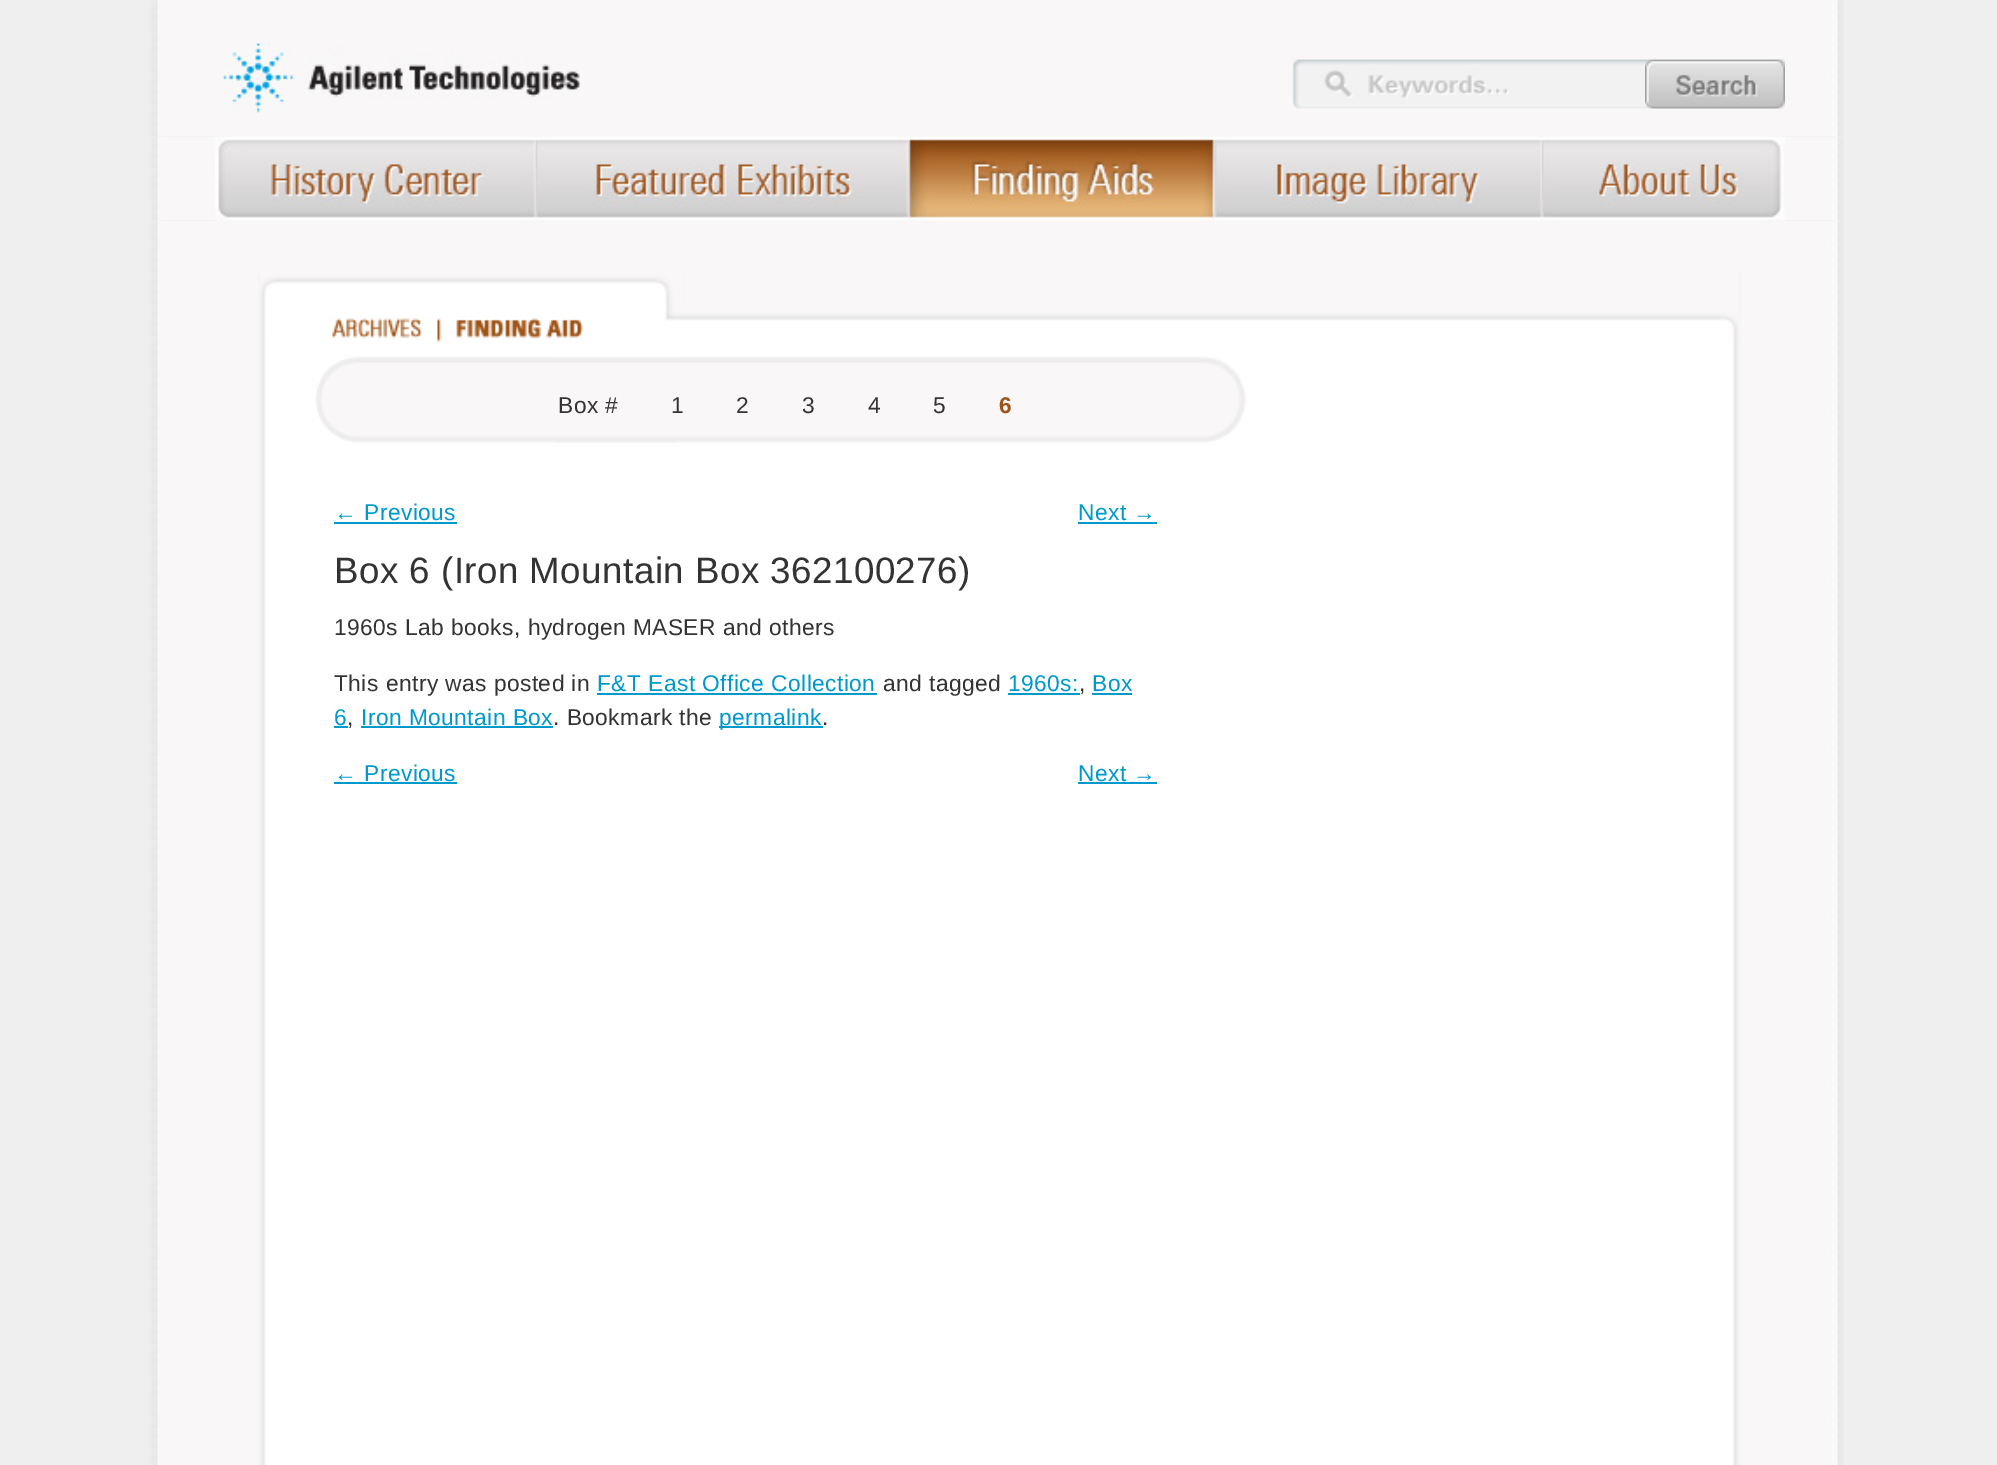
%!PS
<< /PageSize [1997 1465] >> setpagedevice
/rgb { 3 { 255 div 3 1 roll } repeat setrgbcolor } def
/font { [ exch dup neg 0 0 3 -1 roll 0 0 ] selectfont } def
/picture { 5 dict begin { /h /w /y /x /name } { exch def } forall
  gsave x y translate w h scale
  w h 8 [w 0 0 h 0 0] name (r) file false 3 colorimage grestore end } def
0 1465 translate 1 -1 scale
4 setmiterlimit
239 239 239 rgb
0 0 1997 1465 rectfill
(img_01.rgb) 149 0 1695 137 picture
(img_02.rgb) 223 43 357 70 picture
(img_03.rgb) 1292 59 353 50 picture
(img_04.rgb) 1324 70 185 29 picture
(img_05.rgb) 1645 59 140 50 picture
(img_06.rgb) 149 137 1695 84 picture
(img_07.rgb) 215 136 321 85 picture
(img_08.rgb) 535 136 374 85 picture
(img_09.rgb) 908 136 307 85 picture
(img_10.rgb) 1214 136 328 85 picture
(img_11.rgb) 1541 136 244 85 picture
(img_12.rgb) 149 221 1695 1244 picture
(img_13.rgb) 256 273 1487 1192 picture
(img_14.rgb) 260 273 1479 69 picture
(img_15.rgb) 315 356 931 87 picture
0 153 204 rgb
334 522 123 2 rectfill
1078 522 79 2 rectfill
597 693 280 2 rectfill
1008 693 72 2 rectfill
1092 693 40 2 rectfill
334 726 14 2 rectfill
361 726 192 2 rectfill
719 726 104 2 rectfill
334 782 123 2 rectfill
1078 782 79 2 rectfill
/LiberationSans-Regular 22.75 font
51 51 51 rgb
558 413 moveto 0.45 0 (Box #) ashow
671 413 moveto 0.45 0 (1) ashow
736 413 moveto 0.45 0 (2) ashow
802 413 moveto 0.45 0 (3) ashow
868 413 moveto 0.45 0 (4) ashow
933 413 moveto 0.45 0 (5) ashow
/LiberationSans-Bold 22.75 font
158 83 25 rgb
999 413 moveto 0.45 0 (6) ashow
/LiberationSans-Regular 22.75 font
0 153 204 rgb
334 520 moveto 0.45 0 (← Previous) ashow
1078 520 moveto 0.45 0 (Next →) ashow
/LiberationSans-Regular 36.75 font
51 51 51 rgb
334 583 moveto 0.45 0 (Box 6 \(Iron Mountain Box 362100276\)) ashow
/LiberationSans-Regular 22.75 font
334 635 moveto 0.45 0 (1960s Lab books, hydrogen MASER and others) ashow
334 691 moveto 0.45 0 (This entry was posted in) ashow
0 153 204 rgb
597 691 moveto 0.45 0 (F&T East Office Collection) ashow
51 51 51 rgb
883 691 moveto 0.45 0 (and tagged) ashow
0 153 204 rgb
1008 691 moveto 0.45 0 (1960s:) ashow
51 51 51 rgb
1079 691 moveto 0.45 0 (,) ashow
0 153 204 rgb
1092 691 moveto 0.45 0 (Box) ashow
334 725 moveto 0.45 0 (6) ashow
51 51 51 rgb
347 725 moveto 0.45 0 (,) ashow
0 153 204 rgb
361 725 moveto 0.45 0 (Iron Mountain Box) ashow
51 51 51 rgb
553 725 moveto 0.45 0 (. Bookmark the) ashow
0 153 204 rgb
719 725 moveto 0.45 0 (permalink) ashow
51 51 51 rgb
822 725 moveto 0.45 0 (.) ashow
0 153 204 rgb
334 781 moveto 0.45 0 (← Previous) ashow
1078 781 moveto 0.45 0 (Next →) ashow
showpage
